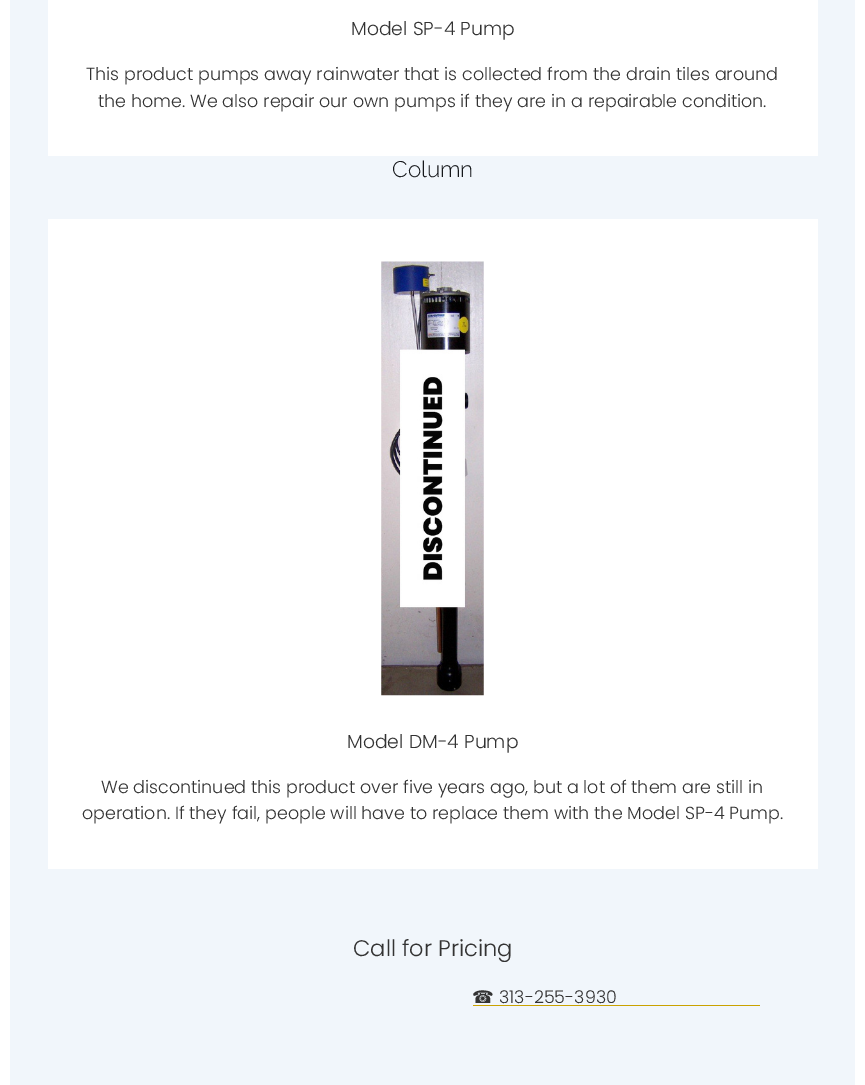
%!PS
<< /PageSize [865 1085] >> setpagedevice
/rgb { 3 { 255 div 3 1 roll } repeat setrgbcolor } def
/font { [ exch dup neg 0 0 3 -1 roll 0 0 ] selectfont } def
/text { moveto show } def
/picture { 5 dict begin { /h /w /y /x /name } { exch def } forall
  gsave x y translate w h scale
  w h 8 [w 0 0 h 0 0] name (r) file false 3 colorimage grestore end } def
0 1085 translate 1 -1 scale
4 setmiterlimit
255 255 255 rgb
0 0 865 1085 rectfill
241 246 251 rgb
10 0 845 1085 rectfill
255 255 255 rgb
48 0 770 156 rectfill
48 219 770 650 rectfill
(img_01.rgb) 381 261 103 435 picture
202 162 0 rgb
473 1005 287 1 rectfill
/Poppins-Light 18.75 font
51 51 51 rgb
(Model SP-4 Pump) 351 35 text
/Poppins-Light 17.5 font
(This product pumps away rainwater that is collected from the drain tiles around) 86 80 text
(the home. We also repair our own pumps if they are in a repairable condition.) 98 107 text
/Raleway-Light 22.5 font
22 24 27 rgb
(Column) 392 177 text
/Poppins-Light 18.75 font
51 51 51 rgb
(Model DM-4 Pump) 347 748 text
/Poppins-Light 17.5 font
(We discontinued this product over five years ago, but a lot of them are still in) 101 793 text
(operation. If they fail, people will have to replace them with the Model SP-4 Pump.) 82 819 text
/Poppins-Light 22.5 font
(Call for Pricing) 353 956 text
/DejaVuSans-Regular 17.5 font
(☎) 472 1003 text
/Poppins-Light 17.5 font
(313-255-3930) 499 1003 text
showpage
